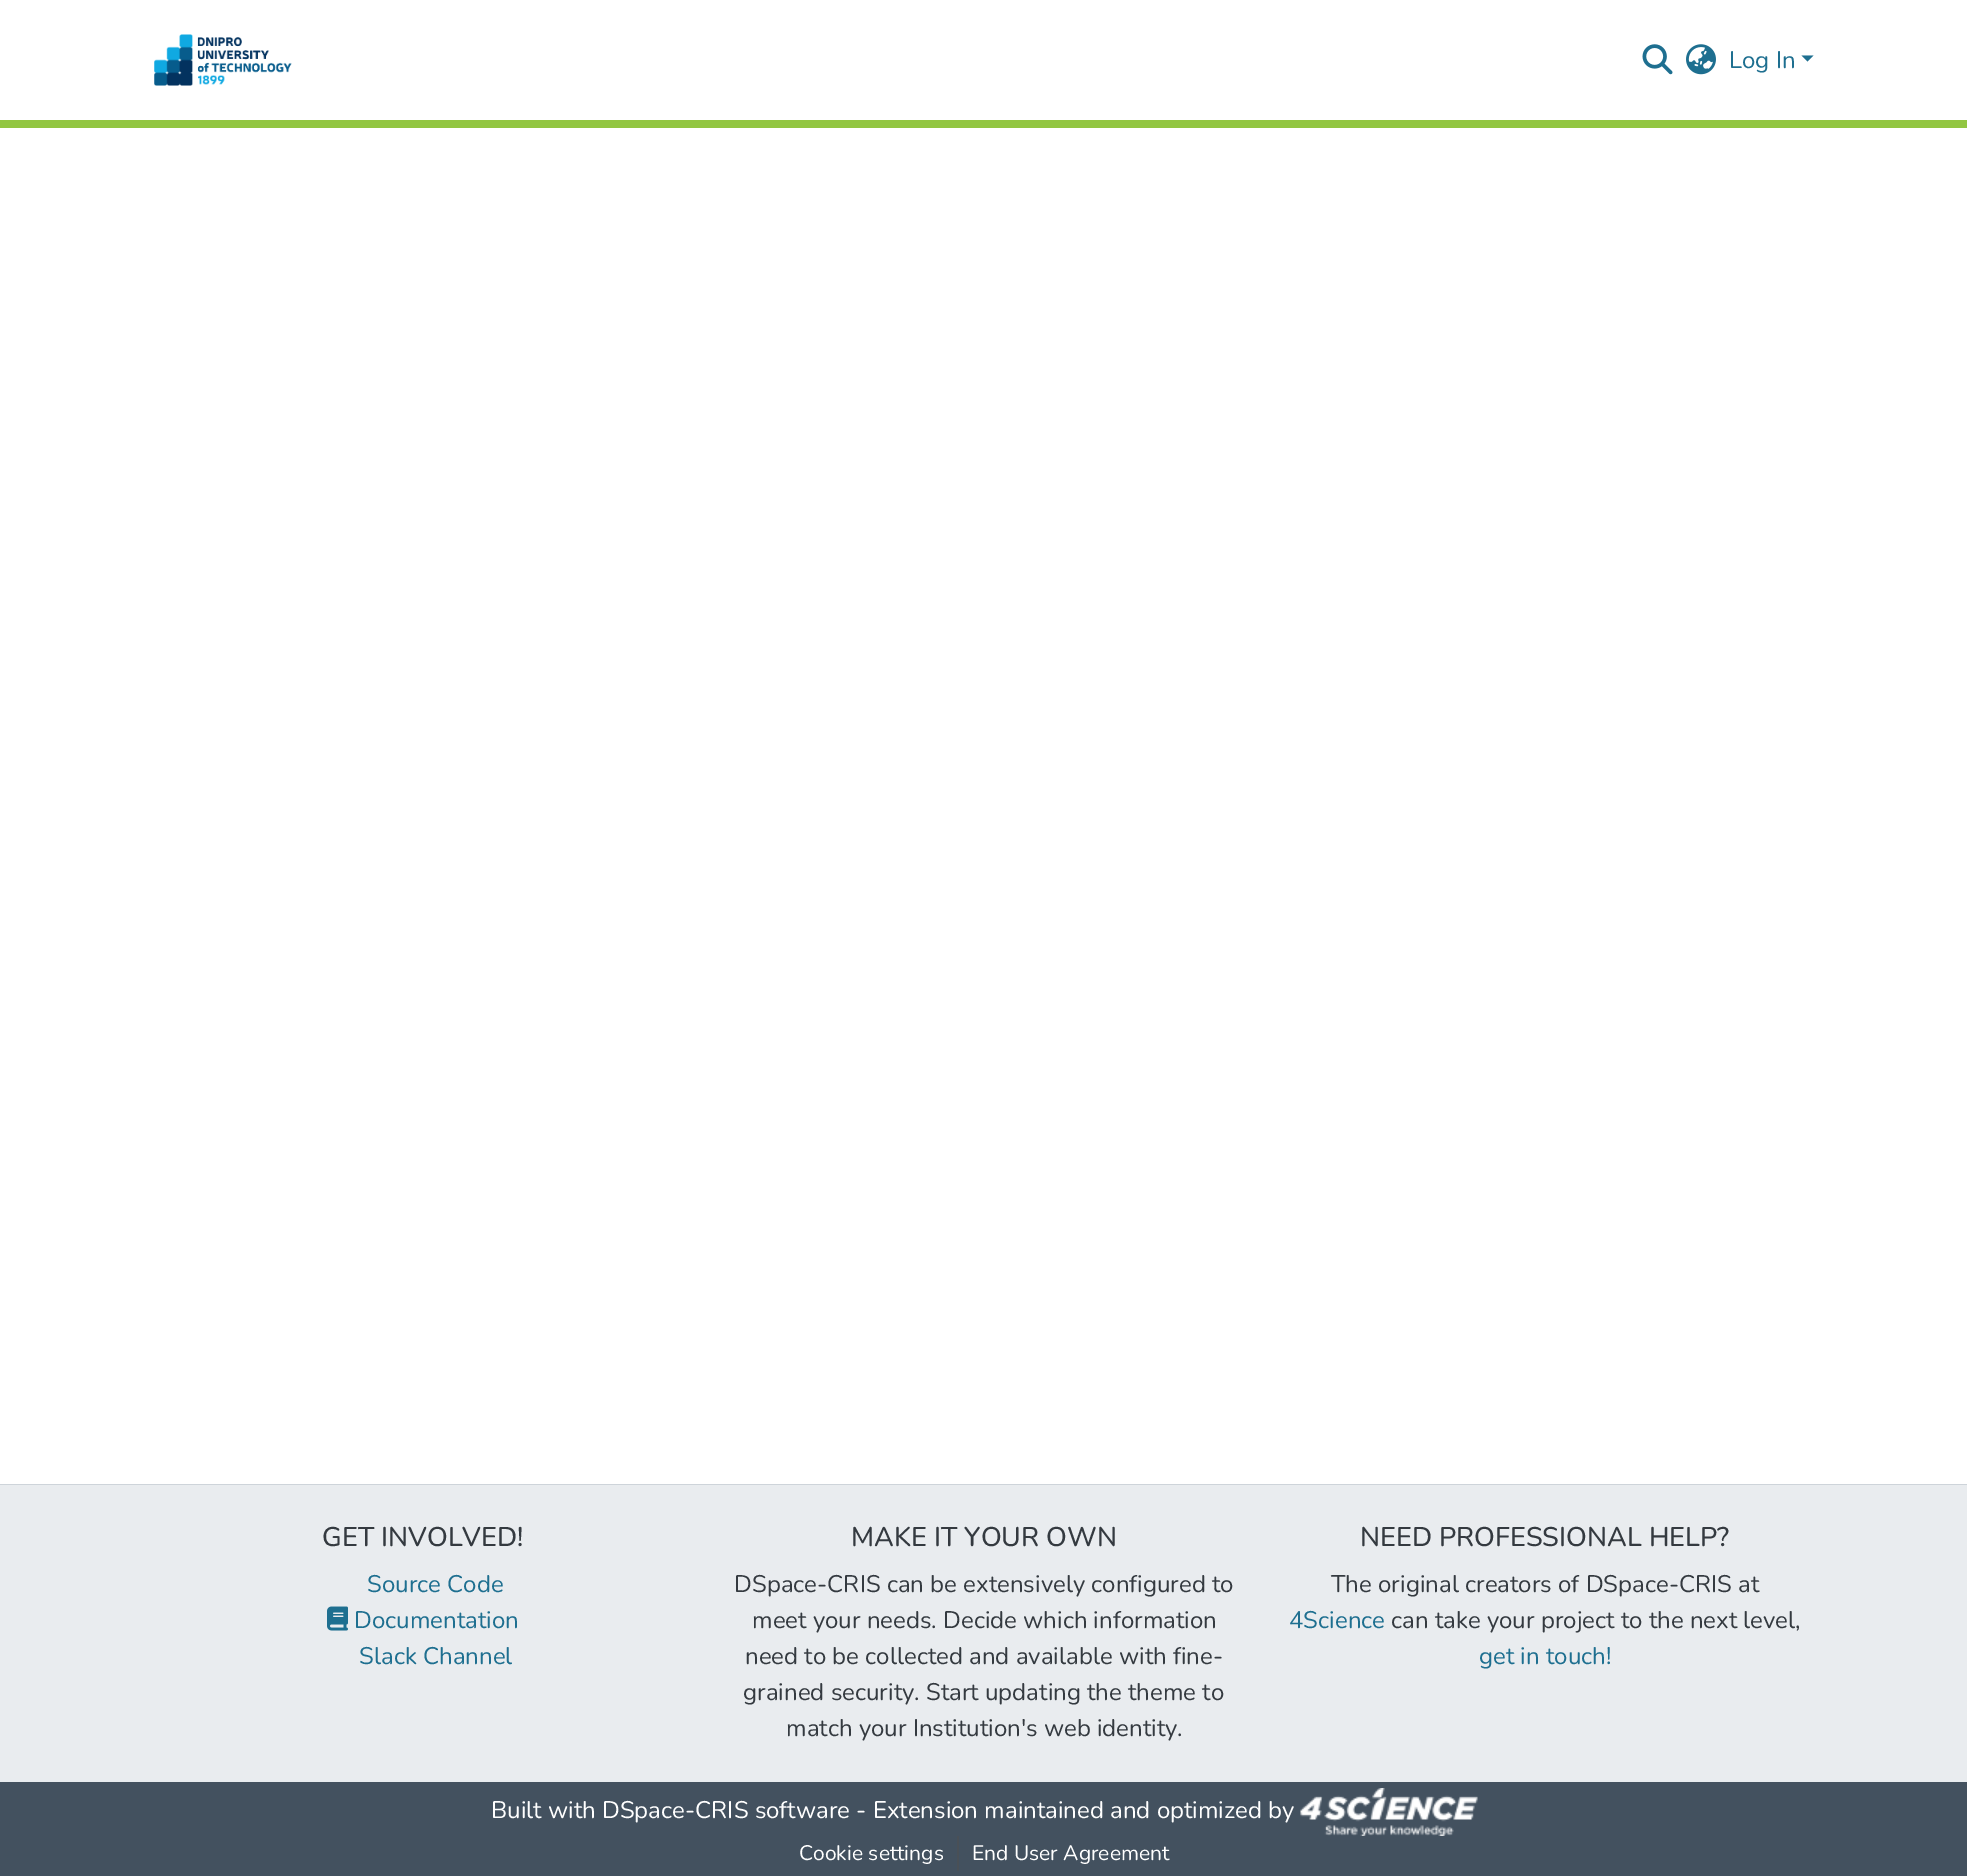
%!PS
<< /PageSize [1967 1876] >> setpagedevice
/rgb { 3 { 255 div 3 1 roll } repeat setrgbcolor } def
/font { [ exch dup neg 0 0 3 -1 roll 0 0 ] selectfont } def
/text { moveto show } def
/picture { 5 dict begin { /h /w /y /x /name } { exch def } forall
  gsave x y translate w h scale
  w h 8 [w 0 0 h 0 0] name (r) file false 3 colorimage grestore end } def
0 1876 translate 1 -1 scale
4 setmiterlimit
255 255 255 rgb
0 0 1967 1876 rectfill
146 198 66 rgb
0 120 1967 8 rectfill
(img_01.rgb) 154 34 138 52 picture
(img_02.rgb) 1642 44 31 31 picture
(img_03.rgb) 1686 44 30 31 picture
30 111 144 rgb
1801.5 55.5 moveto 12 0 rlineto -6 6 rlineto closepath fill
67 81 95 rgb
0 1782 1967 94 rectfill
206 212 218 rgb
0 1484 1967 1 rectfill
233 236 239 rgb
0 1485 1967 297 rectfill
(img_04.rgb) 327 1606 21 25 picture
(img_05.rgb) 1300 1788 178 48 picture
73 80 87 rgb
957 1836 2 35 rectfill
/Nunito-Regular 24 font
30 111 144 rgb
(Log In) 1729 68 text
/Nunito-Medium 27 font
52 58 64 rgb
(GET INVOLVED!) 322 1546 text
/Nunito-Regular 24 font
30 111 144 rgb
(Source Code) 367 1592 text
(Documentation) 354 1628 text
(Slack Channel) 359 1664 text
/Nunito-Medium 27 font
52 58 64 rgb
(MAKE IT YOUR OWN) 851 1546 text
/Nunito-Regular 24 font
(DSpace-CRIS can be extensively configured to) 734 1592 text
(meet your needs. Decide which information) 752 1628 text
(need to be collected and available with fine-) 745 1664 text
(grained security. Start updating the theme to) 743 1700 text
(match your Institution's web identity.) 786 1736 text
/Nunito-Medium 27 font
(NEED PROFESSIONAL HELP?) 1360 1546 text
/Nunito-Regular 24 font
(The original creators of DSpace-CRIS at) 1331 1592 text
30 111 144 rgb
(4Science) 1289 1628 text
52 58 64 rgb
(can take your project to the next level,) 1391 1628 text
30 111 144 rgb
(get in touch!) 1479 1664 text
255 255 255 rgb
(Built with DSpace-CRIS software - Extension maintained and optimized by) 491 1818 text
/Nunito-Regular 21 font
(Cookie settings) 799 1860 text
(End User Agreement) 972 1860 text
showpage
